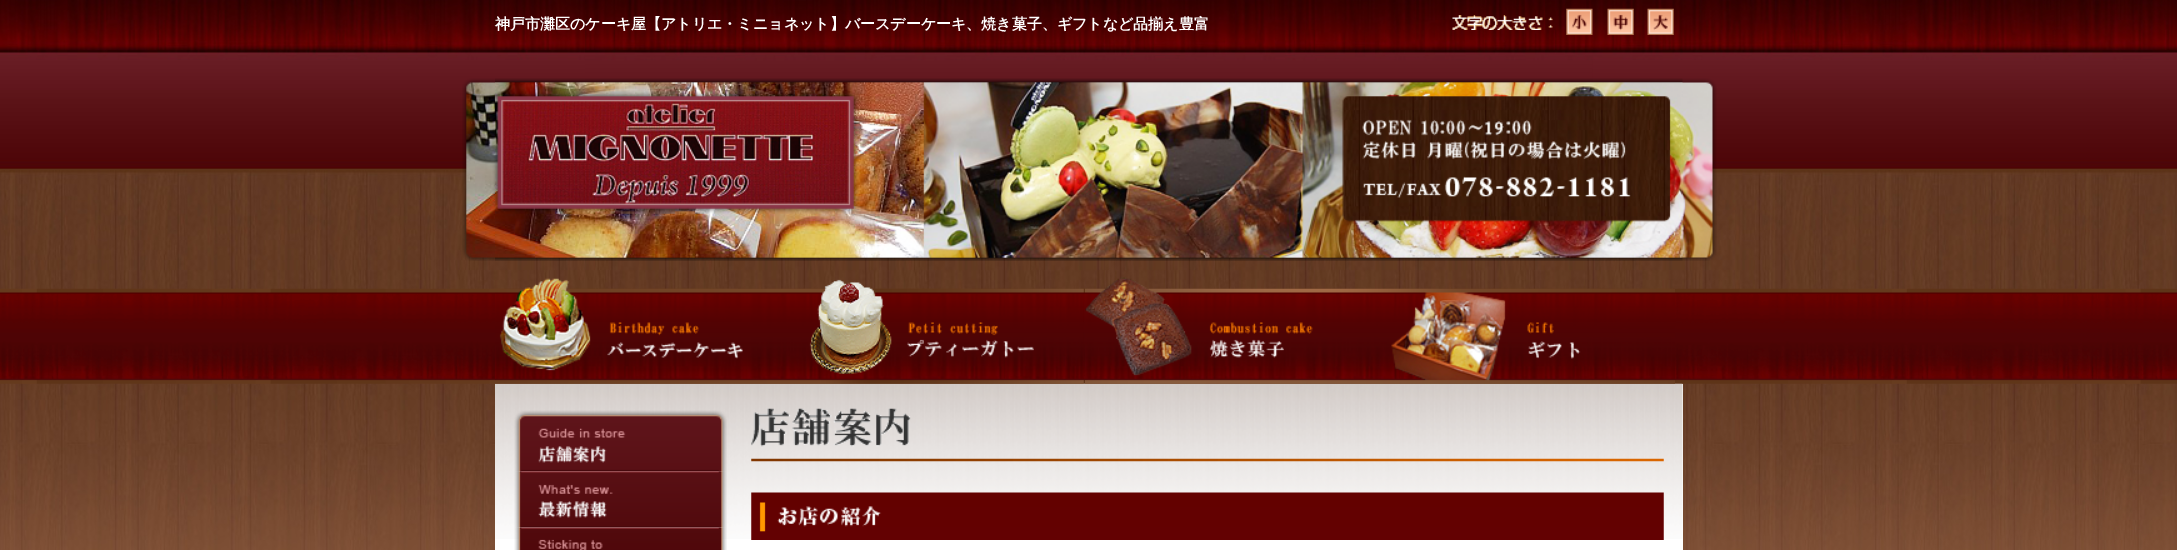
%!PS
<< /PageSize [2177 550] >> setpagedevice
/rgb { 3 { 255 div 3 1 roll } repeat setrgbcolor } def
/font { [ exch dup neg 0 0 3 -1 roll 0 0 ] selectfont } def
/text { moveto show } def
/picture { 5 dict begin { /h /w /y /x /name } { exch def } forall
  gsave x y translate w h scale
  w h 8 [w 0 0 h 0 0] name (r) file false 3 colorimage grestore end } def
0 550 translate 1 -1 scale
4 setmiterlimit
255 255 255 rgb
0 0 2177 550 rectfill
(img_01.rgb) 0 0 2177 550 picture
(img_02.rgb) 585 0 1008 384 picture
(img_03.rgb) 1452 15 101 15 picture
(img_04.rgb) 1566 8 27 27 picture
(img_05.rgb) 1607 8 27 27 picture
(img_06.rgb) 1647 8 27 27 picture
(img_07.rgb) 462 78 1255 183 picture
(img_08.rgb) 495 78 1188 183 picture
(img_09.rgb) 0 288 2177 96 picture
495 384 1188 166 rectfill
(img_14.rgb) 495 383 1188 156 picture
(img_10.rgb) 495 278 295 106 picture
(img_11.rgb) 790 279 294 105 picture
(img_12.rgb) 1085 277 295 107 picture
(img_13.rgb) 1380 288 295 96 picture
(img_15.rgb) 514 410 213 62 picture
(img_16.rgb) 514 471 213 57 picture
(img_17.rgb) 514 527 213 23 picture
(img_18.rgb) 751 408 913 54 picture
(img_19.rgb) 751 492 913 48 picture
/WenQuanYiZenHei-Bold 15 font
(神戸市灘区のケーキ屋【アトリエ・ミニョネット】バースデーケーキ、焼き菓子、ギフトなど品揃え豊富) 495 29 text
showpage
